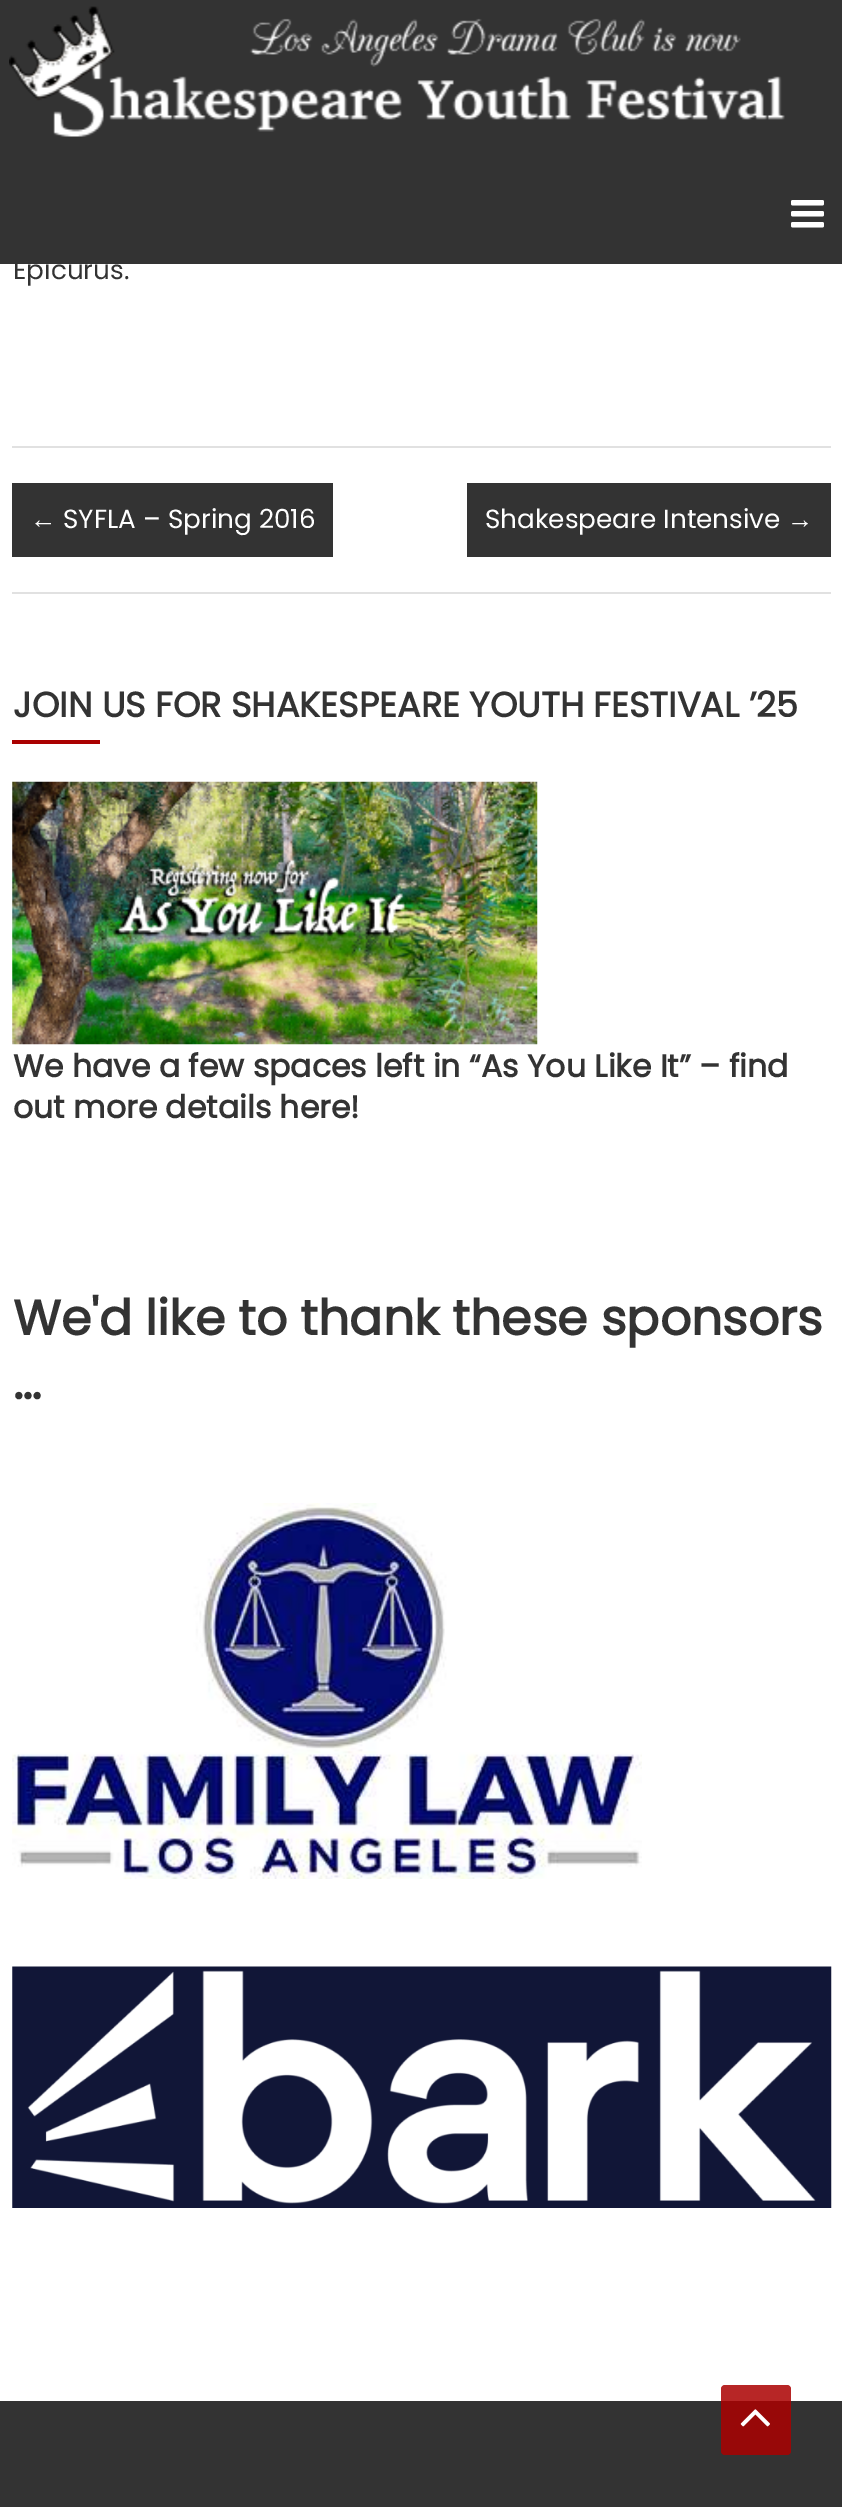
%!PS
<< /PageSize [842 2507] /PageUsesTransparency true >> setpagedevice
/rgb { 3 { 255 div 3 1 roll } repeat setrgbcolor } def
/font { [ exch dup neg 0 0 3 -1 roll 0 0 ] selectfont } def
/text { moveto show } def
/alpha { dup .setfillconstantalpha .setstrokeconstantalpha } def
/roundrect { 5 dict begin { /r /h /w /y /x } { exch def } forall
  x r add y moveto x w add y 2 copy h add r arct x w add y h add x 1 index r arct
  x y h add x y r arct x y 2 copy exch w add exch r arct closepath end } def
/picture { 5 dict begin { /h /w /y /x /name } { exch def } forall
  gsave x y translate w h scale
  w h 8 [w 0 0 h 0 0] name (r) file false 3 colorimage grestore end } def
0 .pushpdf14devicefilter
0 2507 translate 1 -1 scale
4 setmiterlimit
255 255 255 rgb
0 0 842 2507 rectfill
51 51 51 rgb
0 0 842 264 rectfill
(img_01.rgb) 9 6 776 131 picture
(img_02.rgb) 791 200 33 28 picture
225 225 225 rgb
12 446 819 2 rectfill
12 592 819 2 rectfill
51 51 51 rgb
12 483 321 74 rectfill
467 483 364 74 rectfill
170 0 0 rgb
12 740 88 4 rectfill
(img_03.rgb) 12 781 526 264 picture
(img_04.rgb) 12 1503 630 376 picture
(img_05.rgb) 12 1966 820 242 picture
51 51 51 rgb
0 2401 842 106 rectfill
0.85 alpha
170 0 0 rgb
721 2385 70 70 4 roundrect fill
1 alpha
(img_06.rgb) 740 2409 30 18 picture
/Poppins-Regular 26.25 font
51 51 51 rgb
(Epicurus.) 13 279 text
/LiberationSerif-Regular 26.25 font
255 255 255 rgb
(←) 30 528 text
/Poppins-Regular 26.25 font
(SYFLA – Spring 2016) 63 528 text
(Shakespeare Intensive) 485 528 text
/LiberationSerif-Regular 26.25 font
(→) 787 528 text
/Poppins-Bold 35 font
51 51 51 rgb
(JOIN US FOR SHAKESPEARE YOUTH FESTIVAL ’25) 13 717 text
/Poppins-Bold 31.5 font
(We have a few spaces left in “As You Like It” – find) 13 1077 text
(out more details here!) 13 1118 text
/Poppins-Bold 49 font
(We'd like to thank these sponsors) 13 1335 text
(…) 13 1399 text
.poppdf14devicefilter showpage
